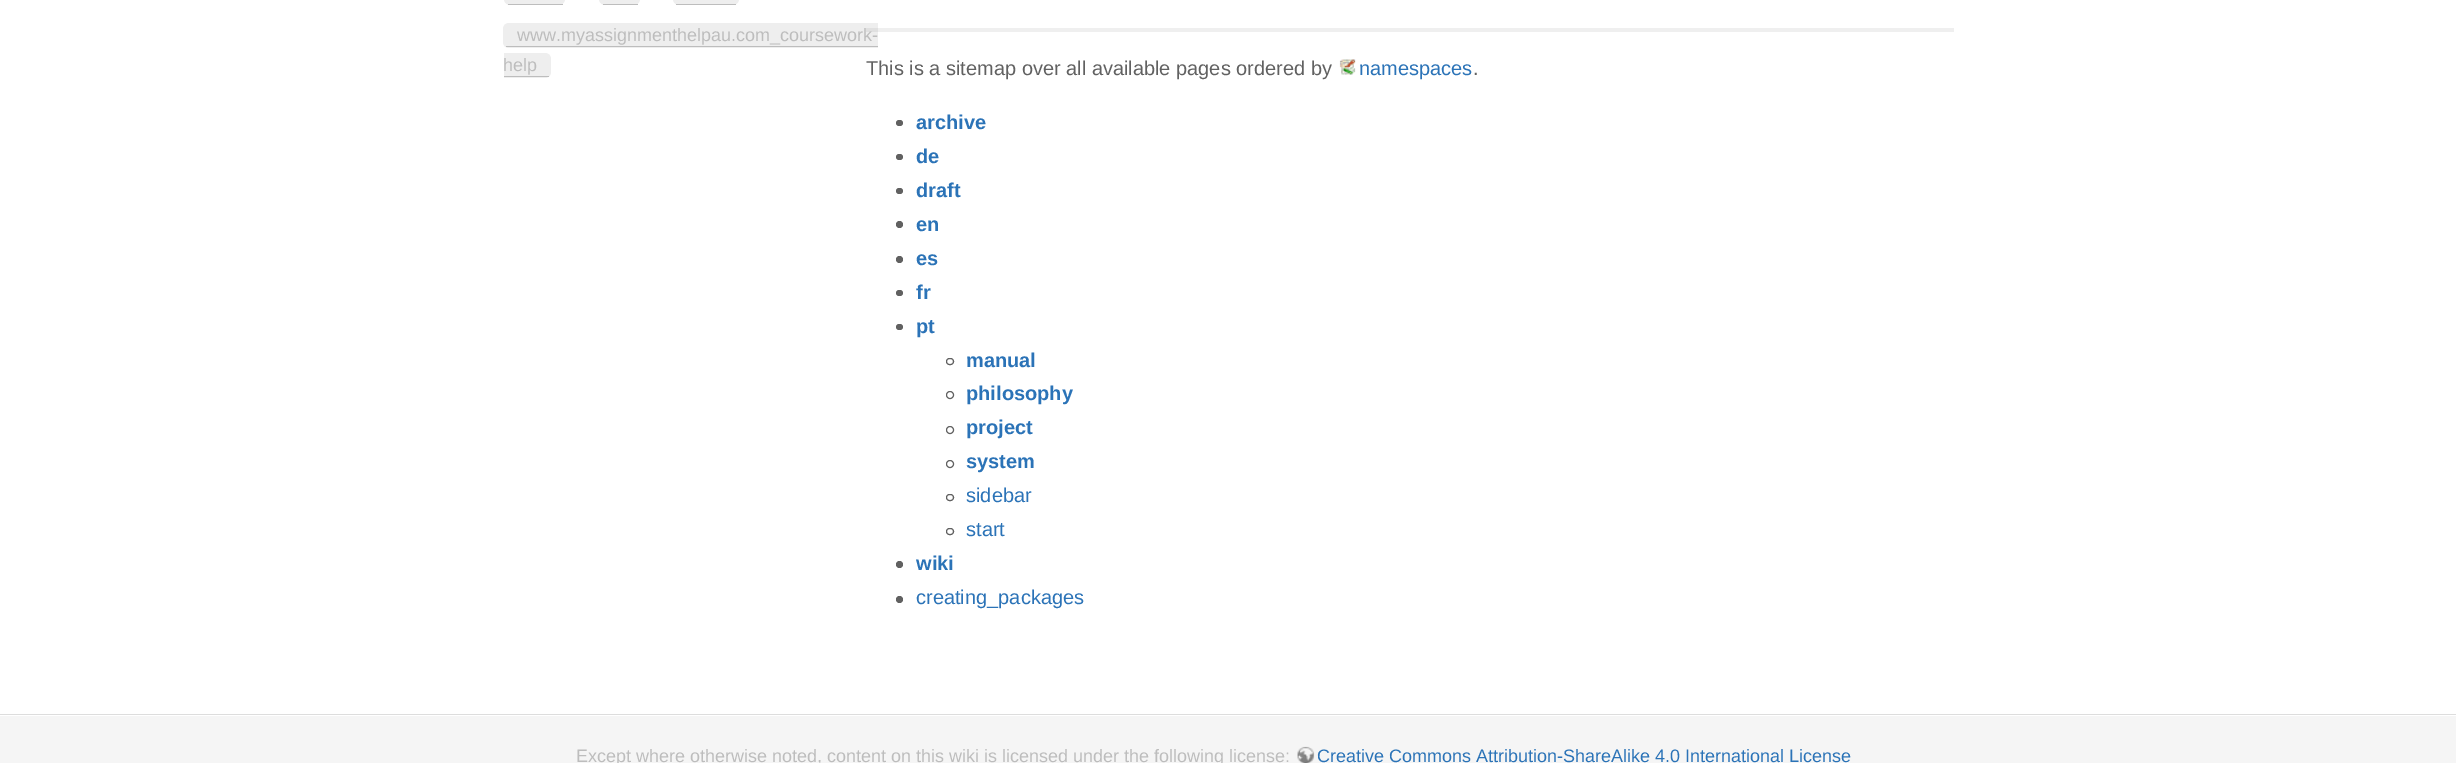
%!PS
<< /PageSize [2456 763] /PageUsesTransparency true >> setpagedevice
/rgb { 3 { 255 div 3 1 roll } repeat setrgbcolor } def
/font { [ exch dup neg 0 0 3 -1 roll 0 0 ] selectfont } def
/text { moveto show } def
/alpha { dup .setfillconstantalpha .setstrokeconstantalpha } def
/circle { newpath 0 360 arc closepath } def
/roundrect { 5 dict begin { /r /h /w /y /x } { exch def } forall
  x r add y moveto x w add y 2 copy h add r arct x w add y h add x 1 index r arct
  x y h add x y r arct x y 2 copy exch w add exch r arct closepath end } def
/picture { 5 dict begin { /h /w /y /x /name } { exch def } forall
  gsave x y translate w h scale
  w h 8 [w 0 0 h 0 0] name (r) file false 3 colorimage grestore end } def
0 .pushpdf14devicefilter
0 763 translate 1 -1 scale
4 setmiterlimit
255 255 255 rgb
0 0 2456 763 rectfill
238 238 238 rgb
504 -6 61 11 6 roundrect fill
189 189 189 rgb
508 4 55 1 rectfill
238 238 238 rgb
599 -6 41 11 6 roundrect fill
189 189 189 rgb
603 4 35 1 rectfill
238 238 238 rgb
673 -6 66 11 6 roundrect fill
189 189 189 rgb
676 4 60 1 rectfill
238 238 238 rgb
509 23 moveto 369 0 rlineto 0 25 rlineto -369 0 rlineto -3.5 0 -6 -2.5 -6 -6 rcurveto 0 -13 rlineto 0 -3.5 2.5 -6 6 -6 rcurveto closepath fill
189 189 189 rgb
506 46 372 1 rectfill
238 238 238 rgb
504 53 moveto 41 0 rlineto 3.5 0 6 2.5 6 6 rcurveto 0 13 rlineto 0 3.5 -2.5 6 -6 6 rcurveto -41 0 rlineto closepath fill
189 189 189 rgb
504 76 45 1 rectfill
0.1 alpha
97 97 97 rgb
866 28 1088 4 rectfill
1 alpha
(img_01.rgb) 1339 59 17 16 picture
896 120 7 6 3 roundrect fill
896 154 7 6 3 roundrect fill
896 188 7 6 3 roundrect fill
899.5 224.5 3.5 circle fill
899.5 259.5 3.5 circle fill
896 290 7 6 3 roundrect fill
896 324 7 6 3 roundrect fill
946.5 358.5 7 6 3 roundrect stroke
950 395 3.5 circle stroke
950 430 3.5 circle stroke
950 464 3.5 circle stroke
946.5 494.5 7 6 3 roundrect stroke
946.5 528.5 7 6 3 roundrect stroke
899.5 564.5 3.5 circle fill
899.5 599.5 3.5 circle fill
221 221 221 rgb
0 714 2456 1 rectfill
245 245 245 rgb
0 716 2456 47 rectfill
(img_02.rgb) 1297 746 18 17 picture
/LiberationSans-Regular 18 font
189 189 189 rgb
(www.myassignmenthelpau.com_coursework-) 517 41 text
(help) 503 71 text
/LiberationSans-Regular 20 font
97 97 97 rgb
(This is a sitemap over all available pages ordered by) 866 75 text
43 115 183 rgb
(namespaces) 1359 75 text
97 97 97 rgb
(.) 1473 75 text
/LiberationSans-Bold 20 font
43 115 183 rgb
(archive) 916 129 text
(de) 916 163 text
(draft) 916 197 text
(en) 916 231 text
(es) 916 265 text
(fr) 916 299 text
(pt) 916 333 text
(manual) 966 367 text
(philosophy) 966 400 text
(project) 966 434 text
(system) 966 468 text
/LiberationSans-Regular 20 font
(sidebar) 966 502 text
(start) 966 536 text
/LiberationSans-Bold 20 font
(wiki) 916 570 text
/LiberationSans-Regular 20 font
(creating_packages) 916 604 text
/LiberationSans-Regular 18 font
189 189 189 rgb
(Except where otherwise noted, content on this wiki is licensed under the following license:) 576 762 text
43 115 183 rgb
(Creative Commons Attribution-ShareAlike 4.0 International License) 1317 762 text
.poppdf14devicefilter showpage
